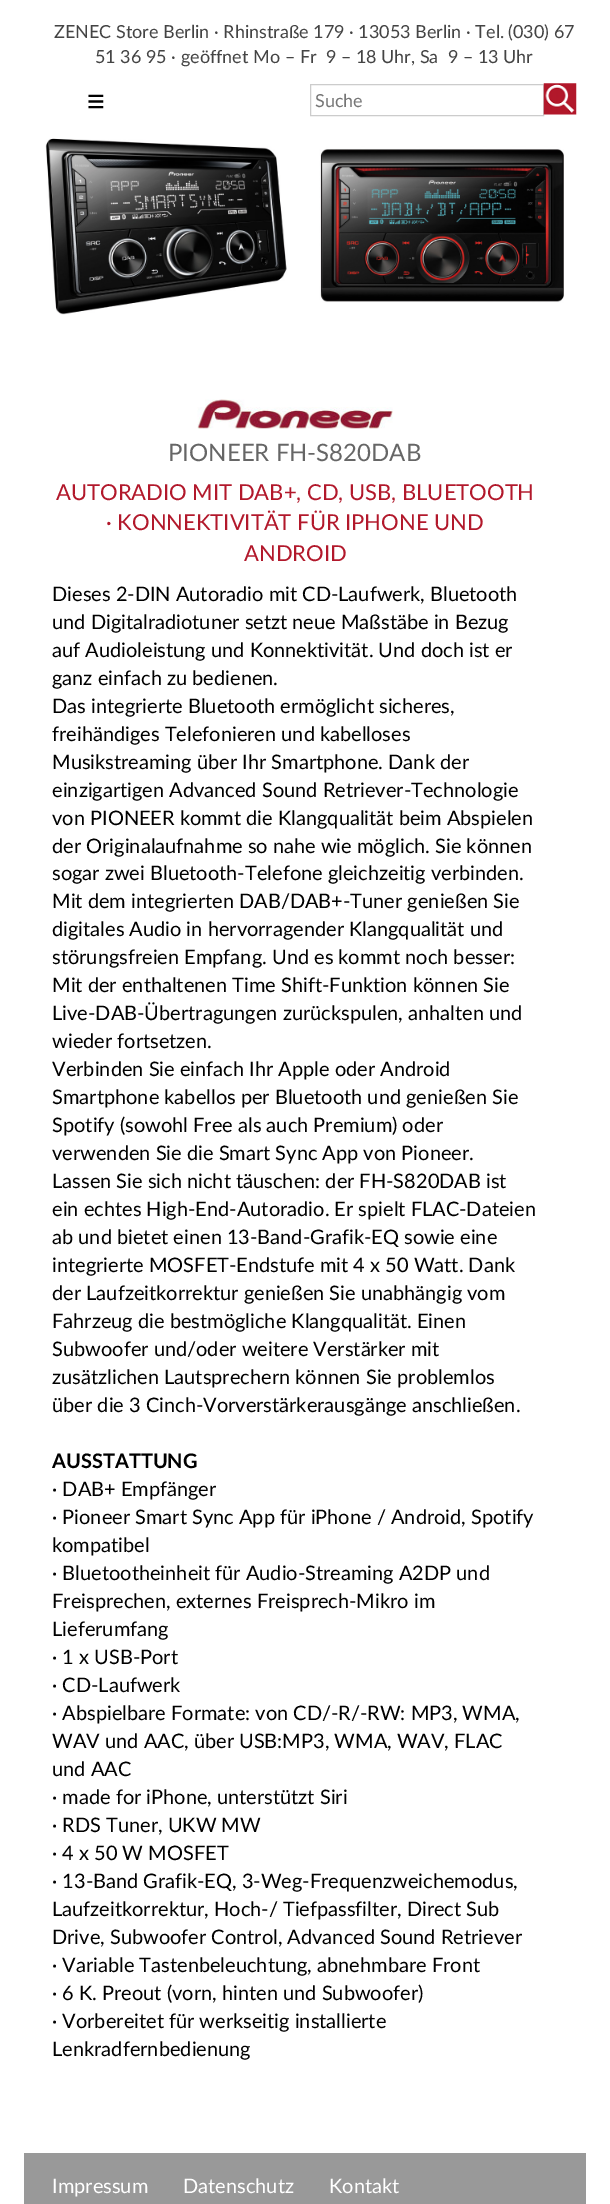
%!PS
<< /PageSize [610 2204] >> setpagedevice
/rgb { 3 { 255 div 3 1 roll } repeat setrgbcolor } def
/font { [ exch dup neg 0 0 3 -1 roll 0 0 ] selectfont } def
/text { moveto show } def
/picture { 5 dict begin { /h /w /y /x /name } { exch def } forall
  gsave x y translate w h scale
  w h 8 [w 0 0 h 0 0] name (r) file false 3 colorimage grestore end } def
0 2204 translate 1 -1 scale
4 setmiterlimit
255 255 255 rgb
0 0 610 2204 rectfill
204 204 204 rgb
310.5 84.5 233 31 rectstroke
(img_01.rgb) 543 83 34 32 picture
(img_02.rgb) 45 138 519 177 picture
(img_03.rgb) 197 399 196 30 picture
153 153 153 rgb
24 2153 562 51 rectfill
/Lato-Regular 18 font
68 68 68 rgb
(ZENEC Store Berlin · Rhinstraße 179 · 13053 Berlin · Tel.) 54 38 text
(\(030\) 67) 508 38 text
(51 36 95 · geöffnet Mo – Fr  9 – 18 Uhr, Sa  9 – 13 Uhr) 95 63 text
/Lato-Regular 34 font
0 0 0 rgb
(≡) 86 113 text
/Lato-Regular 18 font
117 117 117 rgb
(Suche) 315 107 text
/Lato-Regular 24 font
102 102 102 rgb
(PIONEER FH-S820DAB) 168 461 text
/Lato-Regular 22 font
178 24 43 rgb
(AUTORADIO MIT DAB+, CD, USB, BLUETOOTH) 56 500 text
(· KONNEKTIVITÄT FÜR IPHONE UND) 106 530 text
(ANDROID) 244 561 text
/Lato-Regular 20 font
0 0 0 rgb
(Dieses 2-DIN Autoradio mit CD-Laufwerk, Bluetooth) 52 601 text
(und Digitalradiotuner setzt neue Maßstäbe in Bezug) 52 629 text
(auf Audioleistung und Konnektivität. Und doch ist er) 52 657 text
(ganz einfach zu bedienen.) 52 685 text
(Das integrierte Bluetooth ermöglicht sicheres,) 52 713 text
(freihändiges Telefonieren und kabelloses) 52 741 text
(Musikstreaming über Ihr Smartphone. Dank der) 52 769 text
(einzigartigen Advanced Sound Retriever-Technologie) 52 797 text
(von PIONEER kommt die Klangqualität beim Abspielen) 52 825 text
(der Originalaufnahme so nahe wie möglich. Sie können) 52 853 text
(sogar zwei Bluetooth-Telefone gleichzeitig verbinden.) 52 880 text
(Mit dem integrierten DAB/DAB+-Tuner genießen Sie) 52 908 text
(digitales Audio in hervorragender Klangqualität und) 52 936 text
(störungsfreien Empfang. Und es kommt noch besser:) 52 964 text
(Mit der enthaltenen Time Shift-Funktion können Sie) 52 992 text
(Live-DAB-Übertragungen zurückspulen, anhalten und) 52 1020 text
(wieder fortsetzen.) 52 1048 text
(Verbinden Sie einfach Ihr Apple oder Android) 52 1076 text
(Smartphone kabellos per Bluetooth und genießen Sie) 52 1104 text
(Spotify \(sowohl Free als auch Premium\) oder) 52 1132 text
(verwenden Sie die Smart Sync App von Pioneer.) 52 1160 text
(Lassen Sie sich nicht täuschen: der FH-S820DAB ist) 52 1188 text
(ein echtes High-End-Autoradio. Er spielt FLAC-Dateien) 52 1216 text
(ab und bietet einen 13-Band-Grafik-EQ sowie eine) 52 1244 text
(integrierte MOSFET-Endstufe mit 4 x 50 Watt. Dank) 52 1272 text
(der Laufzeitkorrektur genießen Sie unabhängig vom) 52 1300 text
(Fahrzeug die bestmögliche Klangqualität. Einen) 52 1328 text
(Subwoofer und/oder weitere Verstärker mit) 52 1356 text
(zusätzlichen Lautsprechern können Sie problemlos) 52 1384 text
(über die 3 Cinch-Vorverstärkerausgänge anschließen.) 52 1412 text
/Lato-Bold 20 font
(AUSSTATTUNG) 52 1468 text
/Lato-Regular 20 font
(· DAB+ Empfänger) 52 1496 text
(· Pioneer Smart Sync App für iPhone / Android, Spotify) 52 1524 text
(kompatibel) 52 1552 text
(· Bluetootheinheit für Audio-Streaming A2DP und) 52 1580 text
(Freisprechen, externes Freisprech-Mikro im) 52 1608 text
(Lieferumfang) 52 1636 text
(· 1 x USB-Port) 52 1664 text
(· CD-Laufwerk) 52 1692 text
(· Abspielbare Formate: von CD/-R/-RW: MP3, WMA,) 52 1720 text
(WAV und AAC, über USB:MP3, WMA, WAV, FLAC) 52 1748 text
(und AAC) 52 1776 text
(· made for iPhone, unterstützt Siri) 52 1804 text
(· RDS Tuner, UKW MW) 52 1832 text
(· 4 x 50 W MOSFET) 52 1860 text
(· 13-Band Grafik-EQ, 3-Weg-Frequenzweichemodus,) 52 1888 text
(Laufzeitkorrektur, Hoch-/ Tiefpassfilter, Direct Sub) 52 1916 text
(Drive, Subwoofer Control, Advanced Sound Retriever) 52 1944 text
(· Variable Tastenbeleuchtung, abnehmbare Front) 52 1972 text
(· 6 K. Preout \(vorn, hinten und Subwoofer\)) 52 2000 text
(· Vorbereitet für werkseitig installierte) 52 2028 text
(Lenkradfernbedienung) 52 2056 text
255 255 255 rgb
(Impressum) 52 2193 text
(Datenschutz) 183 2193 text
(Kontakt) 329 2193 text
showpage
